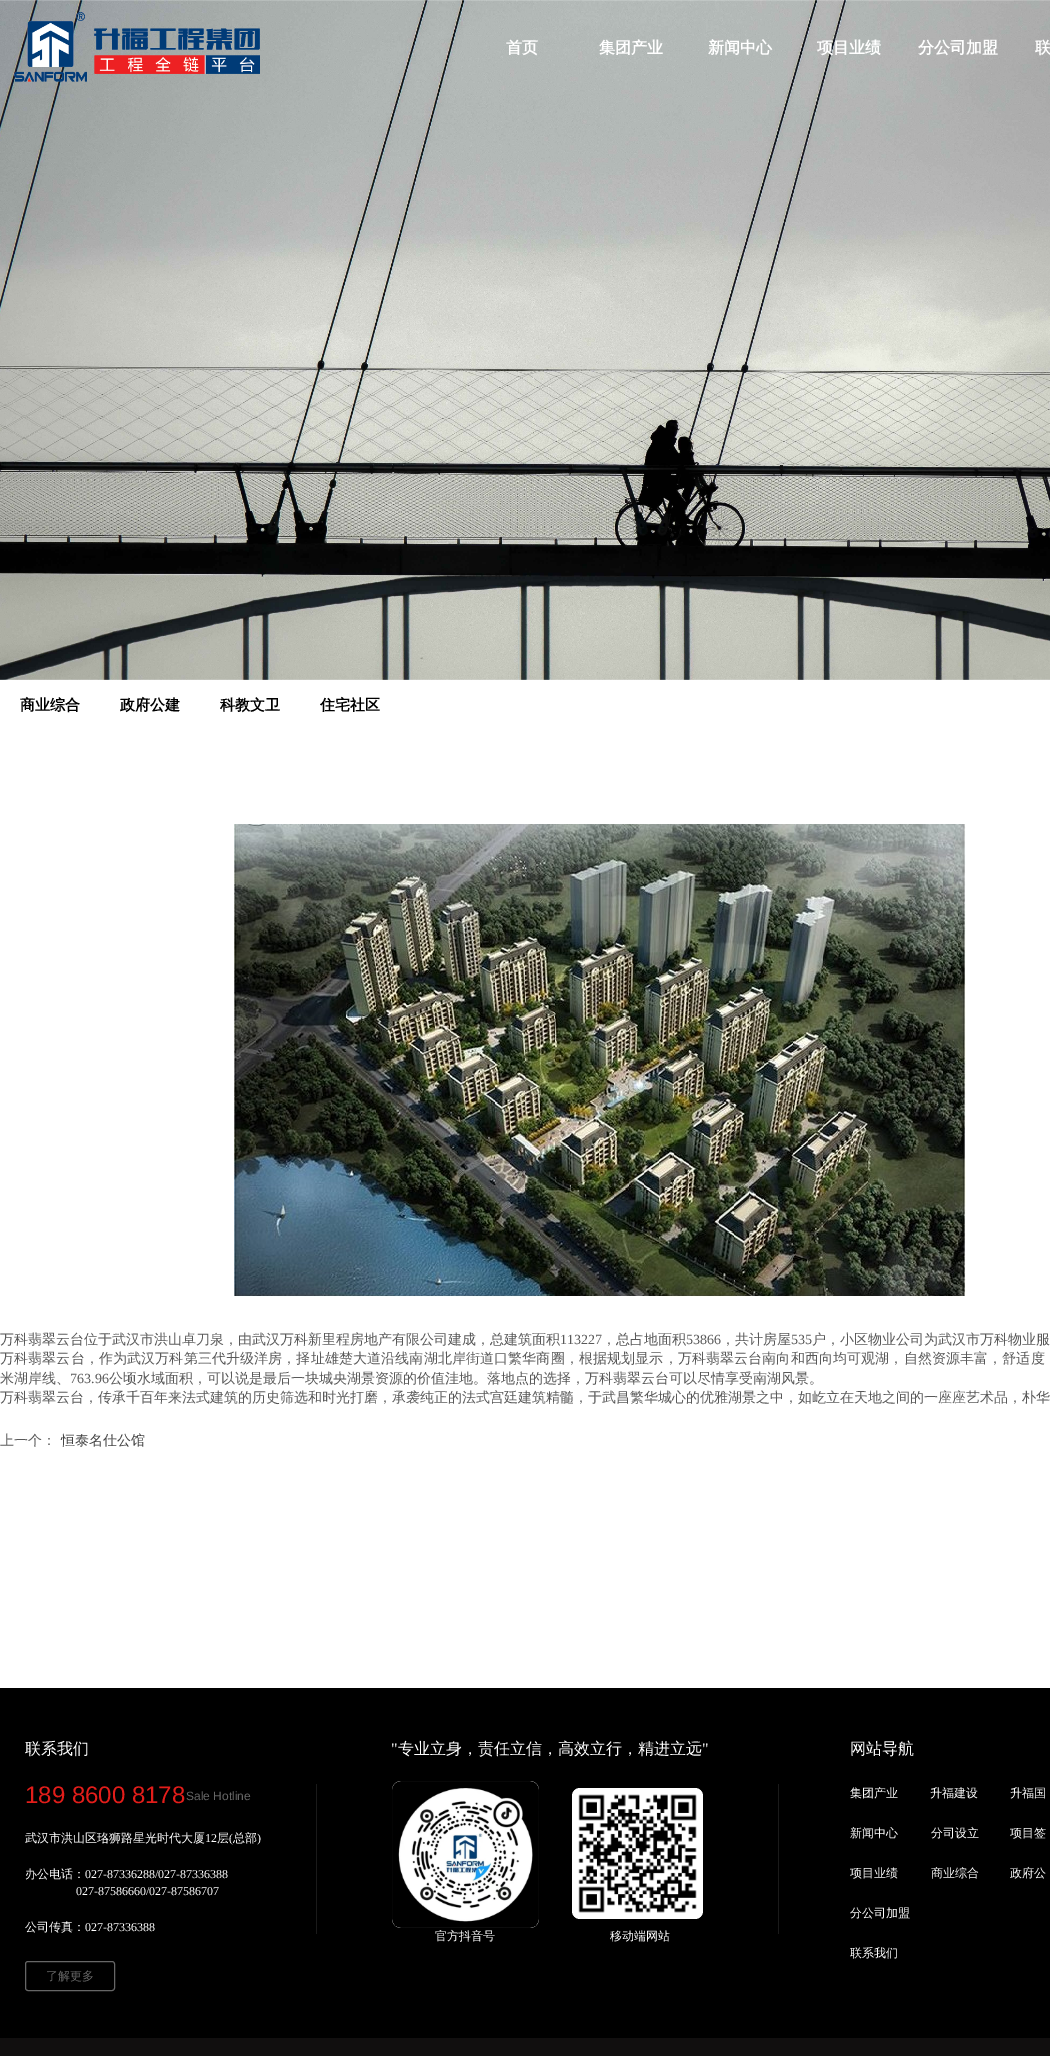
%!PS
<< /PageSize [1050 2056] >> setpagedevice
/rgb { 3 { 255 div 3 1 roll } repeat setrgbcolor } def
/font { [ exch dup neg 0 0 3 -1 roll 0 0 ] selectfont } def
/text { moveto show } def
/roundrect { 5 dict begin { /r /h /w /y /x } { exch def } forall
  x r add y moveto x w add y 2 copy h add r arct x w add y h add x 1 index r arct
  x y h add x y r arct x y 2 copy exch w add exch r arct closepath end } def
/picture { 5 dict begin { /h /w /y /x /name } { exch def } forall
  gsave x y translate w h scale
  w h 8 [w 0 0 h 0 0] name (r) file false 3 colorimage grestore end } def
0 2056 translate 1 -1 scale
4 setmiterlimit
255 255 255 rgb
0 0 1050 2056 rectfill
(img_01.rgb) 0 0 1050 680 picture
(img_02.rgb) 14 12 246 70 picture
(img_03.rgb) 14 12 246 70 picture
(img_04.rgb) 234 824 732 473 picture
0 0 0 rgb
0 1688 1050 350 rectfill
26 26 26 rgb
316 1784 1 150 rectfill
255 255 255 rgb
392 1781 147 147 9 roundrect fill
(img_05.rgb) 392 1781 147 147 picture
572 1788 131 131 8 roundrect fill
(img_06.rgb) 574 1790 127 127 picture
26 26 26 rgb
778 1784 1 150 rectfill
102 102 102 rgb
25.5 1961.5 89 29 2.5 roundrect stroke
17 15 15 rgb
0 2038 1050 18 rectfill
/WenQuanYiZenHei-Bold 16 font
255 255 255 rgb
(首页) 506 53 text
(集团产业) 599 53 text
(新闻中心) 708 53 text
(项目业绩) 817 53 text
(分公司加盟) 918 53 text
(联) 1035 53 text
/WenQuanYiZenHei-Bold 15 font
0 0 0 rgb
(商业综合) 20 710 text
(政府公建) 120 710 text
(科教文卫) 220 710 text
(住宅社区) 320 710 text
/WenQuanYiZenHei-Medium 14 font
89 89 89 rgb
(万科翡翠云台位于武汉市洪山卓刀泉，由武汉万科新里程房地产有限公司建成，总建筑面积) 0 1344 text
/LiberationSerif-Regular 14 font
(113227) 560 1344 text
/WenQuanYiZenHei-Medium 14 font
(，总占地面积) 602 1344 text
/LiberationSerif-Regular 14 font
(53866) 686 1344 text
/WenQuanYiZenHei-Medium 14 font
(，共计房屋) 721 1344 text
/LiberationSerif-Regular 14 font
(535) 791 1344 text
/WenQuanYiZenHei-Medium 14 font
(户，小区物业公司为武汉市万科物业服) 812 1344 text
0 1363 moveto 0.12 0 (万科翡翠云台，作为武汉万科第三代升级洋房，择址雄楚大道沿线南湖北岸街道口繁华商圈，根据规划显示，万科翡翠云台南向和西向均可观湖，自然资源丰富，舒适度) ashow
(米湖岸线、) 0 1383 text
/LiberationSerif-Regular 14 font
(763.96) 70 1383 text
/WenQuanYiZenHei-Medium 14 font
(公顷水域面积，可以说是最后一块城央湖景资源的价值洼地。落地点的选择，万科翡翠云台可以尽情享受南湖风景。) 109 1383 text
(万科翡翠云台，传承千百年来法式建筑的历史筛选和时光打磨，承袭纯正的法式宫廷建筑精髓，于武昌繁华城心的优雅湖景之中，如屹立在天地之间的一座座艺术品，朴华) 0 1402 text
(上一个：) 0 1445 text
68 68 68 rgb
(恒泰名仕公馆) 61 1445 text
/WenQuanYiZenHei-Medium 16 font
255 255 255 rgb
(联系我们) 25 1754 text
/LiberationSerif-Regular 16 font
(") 391 1754 text
/WenQuanYiZenHei-Medium 16 font
(专业立身，责任立信，高效立行，精进立远) 398 1754 text
/LiberationSerif-Regular 16 font
(") 702 1754 text
/WenQuanYiZenHei-Medium 16 font
(网站导航) 850 1754 text
/LiberationSans-Regular 24 font
227 29 26 rgb
(189 8600 8178) 25 1803 text
/LiberationSans-Regular 12 font
102 102 102 rgb
(Sale Hotline) 186 1800 text
/WenQuanYiZenHei-Medium 12 font
255 255 255 rgb
(集团产业) 850 1797 text
(升福建设) 930 1797 text
(升福国) 1010 1797 text
(武汉市洪山区珞狮路星光时代大厦) 25 1842 text
/LiberationSerif-Regular 12 font
(12) 205 1842 text
/WenQuanYiZenHei-Medium 12 font
(层) 217 1842 text
/LiberationSerif-Regular 12 font
(\() 229 1842 text
/WenQuanYiZenHei-Medium 12 font
(总部) 233 1842 text
/LiberationSerif-Regular 12 font
(\)) 257 1842 text
/WenQuanYiZenHei-Medium 12 font
(办公电话：) 25 1878 text
/LiberationSerif-Regular 12 font
(027-87336288/027-87336388) 85 1878 text
(027-87586660/027-87586707) 76 1895 text
/WenQuanYiZenHei-Medium 12 font
(公司传真：) 25 1931 text
/LiberationSerif-Regular 12 font
(027-87336388) 85 1931 text
/WenQuanYiZenHei-Medium 12 font
(新闻中心) 850 1837 text
(分司设立) 931 1837 text
(项目签) 1010 1837 text
(项目业绩) 850 1877 text
(商业综合) 931 1877 text
(政府公) 1010 1877 text
(分公司加盟) 850 1917 text
(官方抖音号) 435 1940 text
(移动端网站) 610 1940 text
(联系我们) 850 1957 text
102 102 102 rgb
(了解更多) 46 1980 text
showpage
